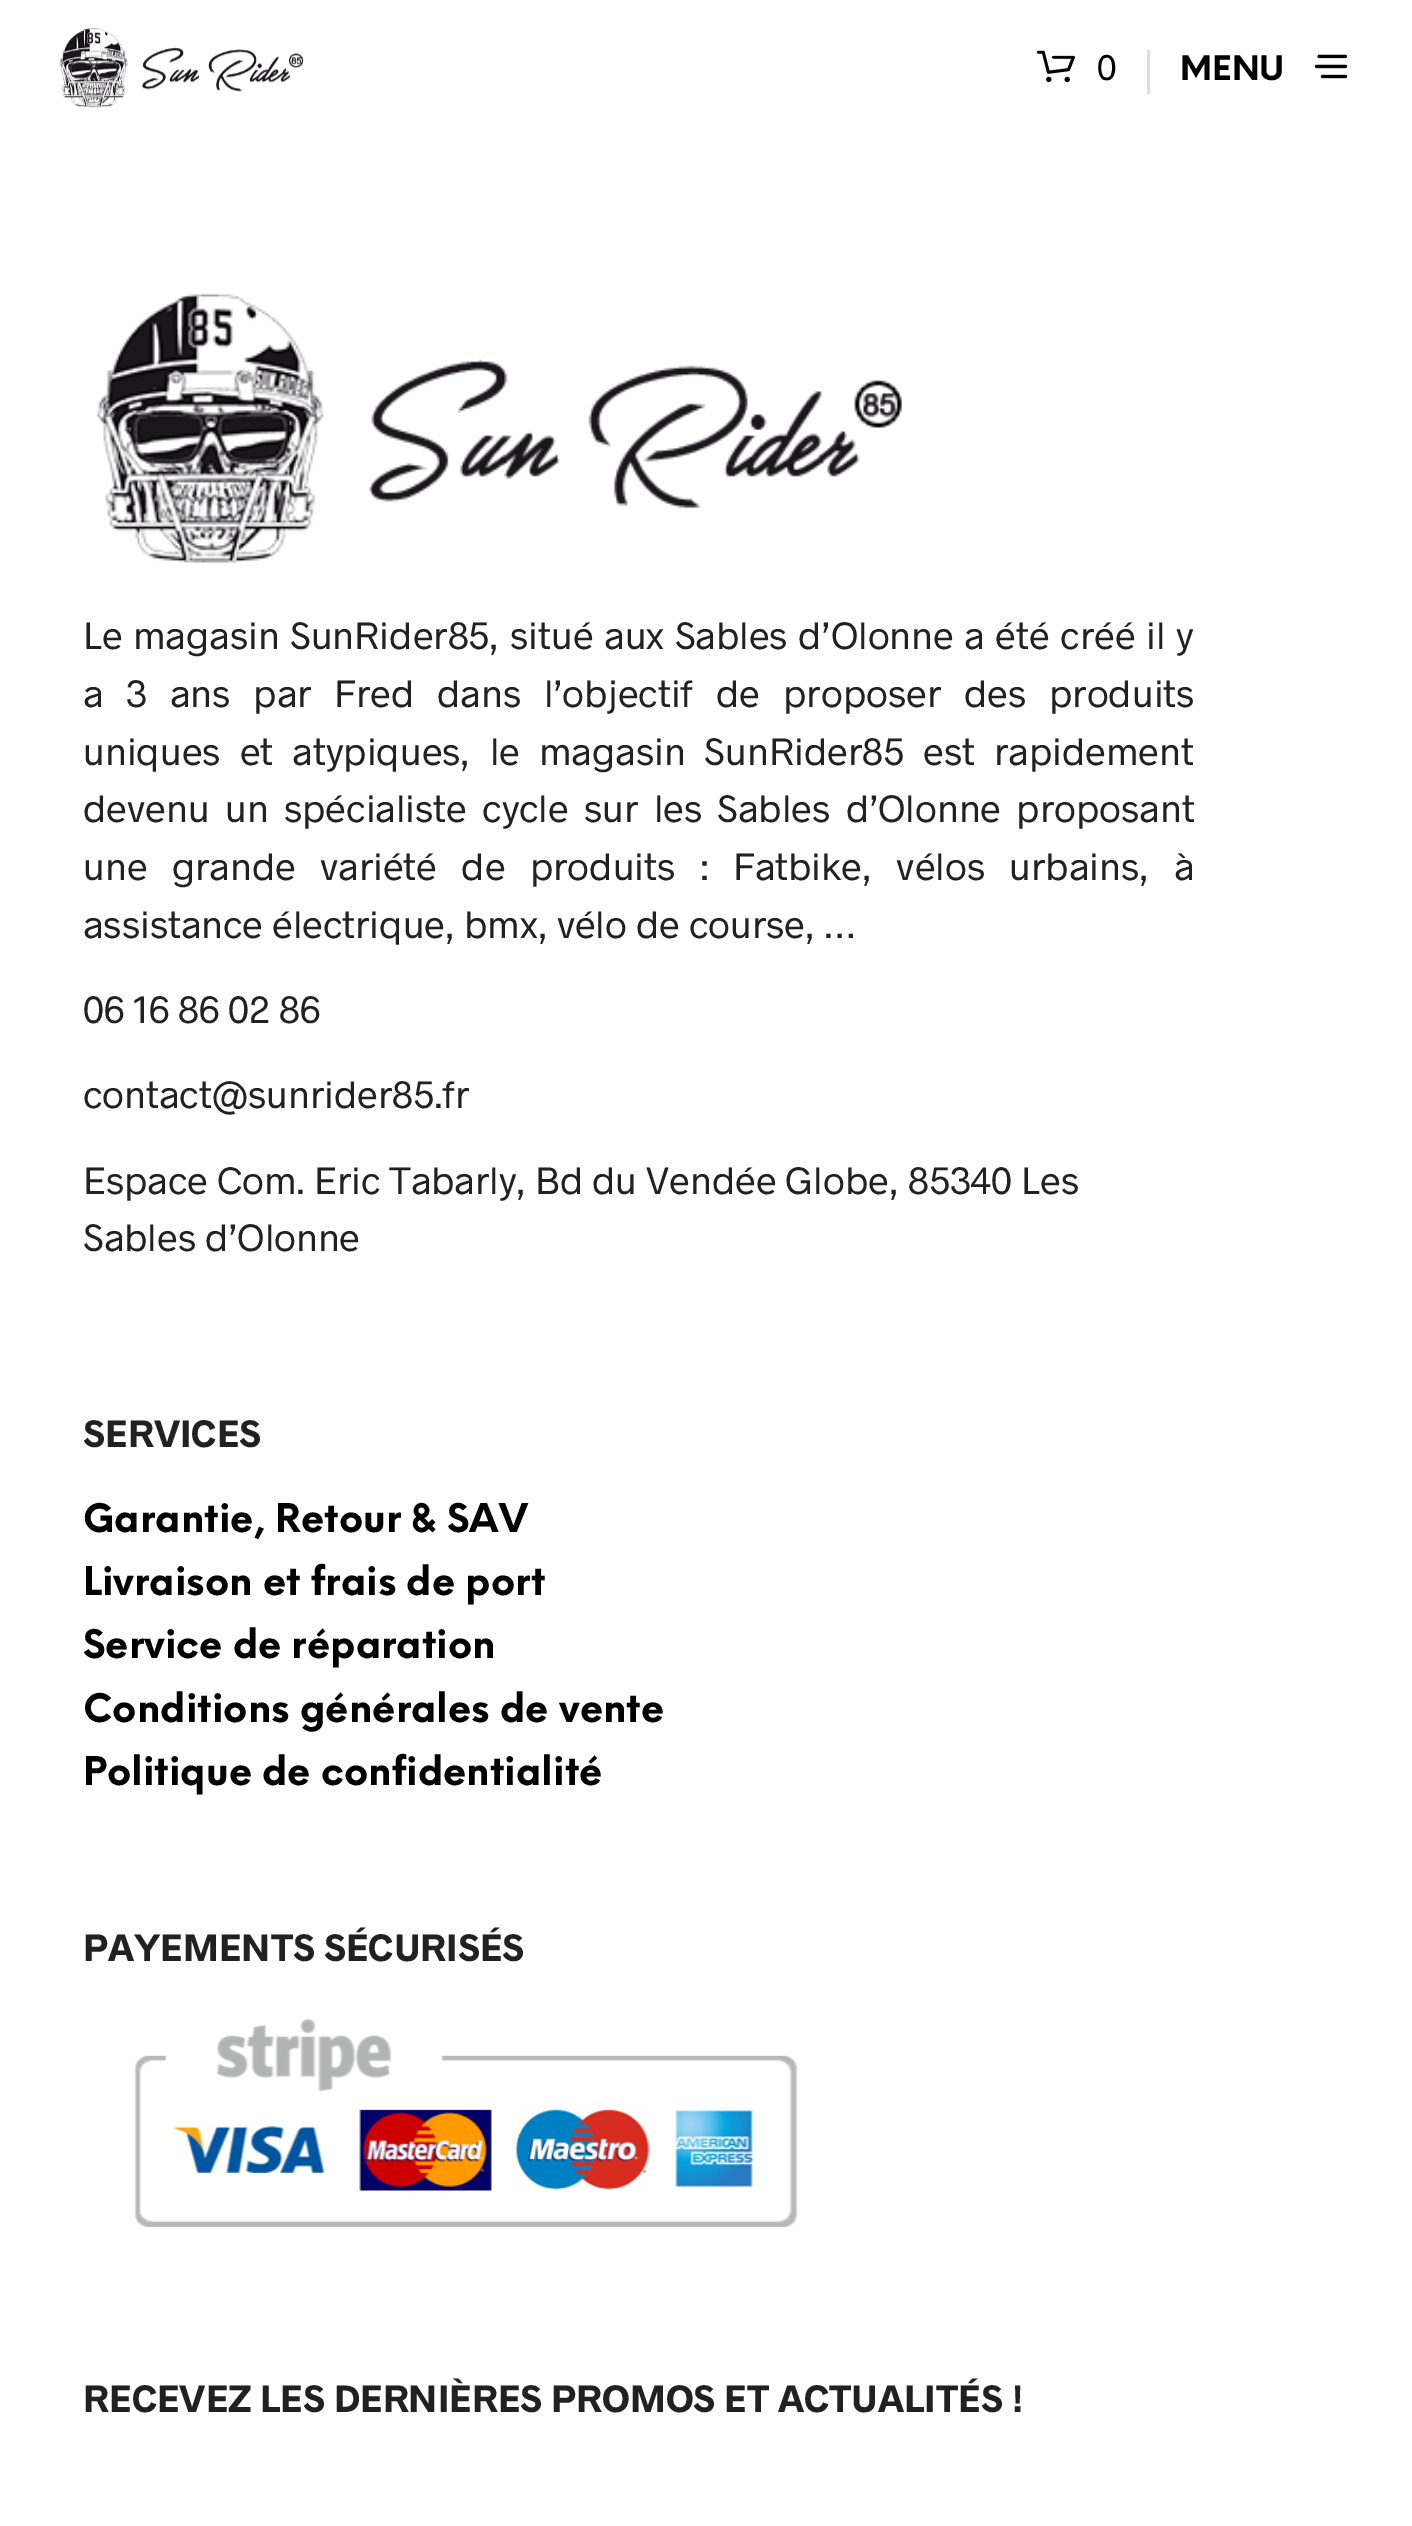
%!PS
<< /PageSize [1412 2526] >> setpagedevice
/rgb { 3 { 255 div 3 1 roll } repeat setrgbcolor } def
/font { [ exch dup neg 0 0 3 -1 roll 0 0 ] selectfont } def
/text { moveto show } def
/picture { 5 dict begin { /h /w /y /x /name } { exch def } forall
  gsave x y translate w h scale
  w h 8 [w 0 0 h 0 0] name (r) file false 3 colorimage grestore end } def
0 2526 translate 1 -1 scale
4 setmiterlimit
255 255 255 rgb
0 0 1412 2526 rectfill
(img_01.rgb) 59 28 244 80 picture
(img_02.rgb) 1036 50 40 33 picture
221 221 221 rgb
1147 50 3 44 rectfill
(img_03.rgb) 1314 54 34 25 picture
(img_04.rgb) 96 293 806 270 picture
(img_05.rgb) 135 2019 663 208 picture
/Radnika-Regular 36 font
0 0 0 rgb
(0) 1097 80 text
/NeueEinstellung-Bold 33 font
(MENU) 1180 80 text
/Radnika-Regular 38.5 font
33 33 33 rgb
83 649 moveto 1.75 0 32 (Le magasin SunRider85, situé aux Sables d’Olonne a été créé il y) widthshow
83 707 moveto 14 0 32 (a 3 ans par Fred dans l’objectif de proposer des produits) widthshow
83 765 moveto 10.25 0 32 (uniques et atypiques, le magasin SunRider85 est rapidement) widthshow
83 822 moveto 6.5 0 32 (devenu un spécialiste cycle sur les Sables d’Olonne proposant) widthshow
83 880 moveto 15.5 0 32 (une grande variété de produits : Fatbike, vélos urbains, à) widthshow
(assistance électrique, bmx, vélo de course, …) 83 938 text
(06 16 86 02 86) 83 1023 text
(contact@sunrider85.fr) 83 1108 text
(Espace Com. Eric Tabarly, Bd du Vendée Globe, 85340 Les) 83 1194 text
(Sables d’Olonne) 83 1251 text
/Radnika-Bold 38.5 font
(SERVICES) 83 1447 text
/NeueEinstellung-Bold 38.5 font
0 0 0 rgb
(Garantie, Retour & SAV) 83 1532 text
(Livraison et frais de port) 83 1595 text
(Service de réparation) 83 1658 text
(Conditions générales de vente) 83 1722 text
(Politique de confidentialité) 83 1785 text
/Radnika-Bold 38.5 font
33 33 33 rgb
(PAYEMENTS SÉCURISÉS) 83 1961 text
(RECEVEZ LES DERNIÈRES PROMOS ET ACTUALITÉS !) 83 2412 text
showpage
